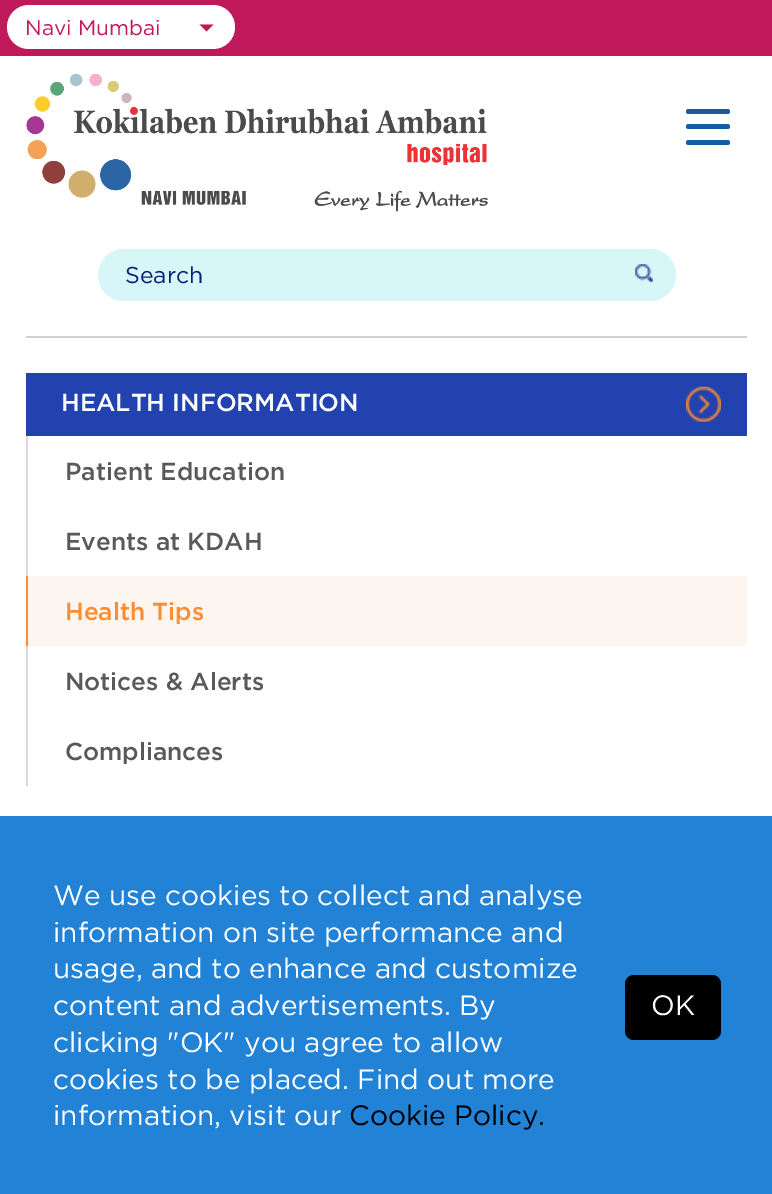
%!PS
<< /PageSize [772 1194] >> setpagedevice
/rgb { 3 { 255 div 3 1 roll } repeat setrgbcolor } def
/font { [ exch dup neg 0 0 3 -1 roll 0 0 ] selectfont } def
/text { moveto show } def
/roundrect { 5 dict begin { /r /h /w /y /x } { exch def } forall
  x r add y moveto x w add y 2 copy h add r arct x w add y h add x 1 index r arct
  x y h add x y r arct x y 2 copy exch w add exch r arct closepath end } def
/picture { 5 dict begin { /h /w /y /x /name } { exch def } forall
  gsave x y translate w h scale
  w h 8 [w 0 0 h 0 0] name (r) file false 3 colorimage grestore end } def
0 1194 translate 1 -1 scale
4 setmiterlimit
255 255 255 rgb
0 0 772 1194 rectfill
192 25 91 rgb
0 0 772 56 rectfill
255 255 255 rgb
7 5 228 44 22 roundrect fill
192 25 91 rgb
199.5 24.5 moveto 14 0 rlineto -7 7 rlineto closepath fill
210 208 208 rgb
26 336 721 2 rectfill
20 93 162 rgb
686 109 44 5 2.5 roundrect fill
686 124 44 5 2.5 roundrect fill
686 140 44 5 2.5 roundrect fill
(img_01.rgb) 26 74 462 138 picture
215 246 248 rgb
98 249 578 52 26 roundrect fill
(img_02.rgb) 635 264 18 18 picture
34 66 175 rgb
26 373 721 63 rectfill
(img_03.rgb) 686 386 35 36 picture
218 218 218 rgb
26 436 2 140 rectfill
253 245 239 rgb
28 576 719 70 rectfill
255 140 47 rgb
26 576 2 70 rectfill
218 218 218 rgb
26 646 2 140 rectfill
34 130 214 rgb
0 816 772 378 rectfill
0 0 0 rgb
625 975 96 65 9 roundrect fill
/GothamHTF-Regular 21 font
192 25 91 rgb
(Navi Mumbai) 25 35 text
/GothamHTF-Regular 23 font
8 33 120 rgb
(Search) 125 283 text
/GothamHTF-Medium 24.5 font
255 255 255 rgb
(HEALTH INFORMATION) 61 411 text
89 89 89 rgb
(Patient Education) 65 480 text
(Events at KDAH) 65 550 text
255 140 47 rgb
(Health Tips) 65 620 text
89 89 89 rgb
(Notices & Alerts) 65 690 text
(Compliances) 65 760 text
/GothamHTF-Regular 28 font
255 255 255 rgb
(We use cookies to collect and analyse) 53 905 text
(information on site performance and) 53 942 text
(usage, and to enhance and customize) 53 978 text
(content and advertisements. By) 53 1015 text
(clicking "OK" you agree to allow) 53 1052 text
(cookies to be placed. Find out more) 53 1089 text
(information, visit our) 53 1125 text
0 0 0 rgb
(Cookie Policy.) 349 1125 text
255 255 255 rgb
(OK) 651 1015 text
showpage
